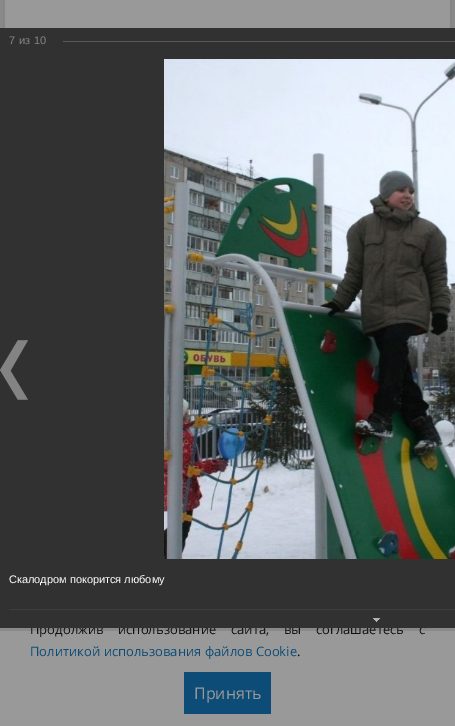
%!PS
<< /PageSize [455 726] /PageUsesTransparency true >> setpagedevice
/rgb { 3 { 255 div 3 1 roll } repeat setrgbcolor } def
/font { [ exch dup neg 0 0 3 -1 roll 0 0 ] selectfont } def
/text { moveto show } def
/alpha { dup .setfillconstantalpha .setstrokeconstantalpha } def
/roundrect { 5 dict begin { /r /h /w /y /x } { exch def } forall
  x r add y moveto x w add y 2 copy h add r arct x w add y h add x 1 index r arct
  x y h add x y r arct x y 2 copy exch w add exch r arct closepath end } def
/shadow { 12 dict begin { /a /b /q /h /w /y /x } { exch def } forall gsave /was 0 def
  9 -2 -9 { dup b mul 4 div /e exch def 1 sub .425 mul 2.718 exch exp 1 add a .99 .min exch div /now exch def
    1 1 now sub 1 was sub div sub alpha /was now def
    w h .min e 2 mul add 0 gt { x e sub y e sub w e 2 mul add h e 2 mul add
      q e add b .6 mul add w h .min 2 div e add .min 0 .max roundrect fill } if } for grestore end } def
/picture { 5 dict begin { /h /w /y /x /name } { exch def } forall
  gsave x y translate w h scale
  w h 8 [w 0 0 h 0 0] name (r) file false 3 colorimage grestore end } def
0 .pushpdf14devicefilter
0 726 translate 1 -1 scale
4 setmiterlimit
142 142 142 rgb
0 0 455 726 rectfill
0 0 0 rgb
5 -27 445 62 4 7.5 0.1 shadow
153 153 153 rgb
5 -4 445 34 4 roundrect fill
0 628 455 98 rectfill
0.1 alpha
0 0 0 rgb
0 628 455 3 rectfill
1 alpha
13 76 118 rgb
184 672 87 42 rectfill
/OpenSans-Regular 13 font
17 17 17 rgb
30 634 moveto 11.5 0 32 (Продолжив использование сайта, вы соглашаетесь с) widthshow
49 49 49 rgb
0 28 455 600 rectfill
(img_03.rgb) 0 340 28 60 picture
(img_02.rgb) 373 618 7 4 picture
/LiberationSans-Regular 11 font
255 255 255 rgb
(Скалодром покорится любому) 9 583 text
61 61 61 rgb
9 609 446 1 rectfill
90 90 90 rgb
63 41 392 1 rectfill
131 131 131 rgb
(10) 34 44 text
(из) 19 44 text
(7) 9 44 text
(img_01.rgb) 164 59 291 500 picture
/OpenSans-Regular 13 font
13 76 118 rgb
(Политикой использования файлов Cookie) 30 656 text
17 17 17 rgb
(.) 297 656 text
/OpenSans-Regular 16 font
153 153 153 rgb
(Принять) 194 699 text
.poppdf14devicefilter showpage
